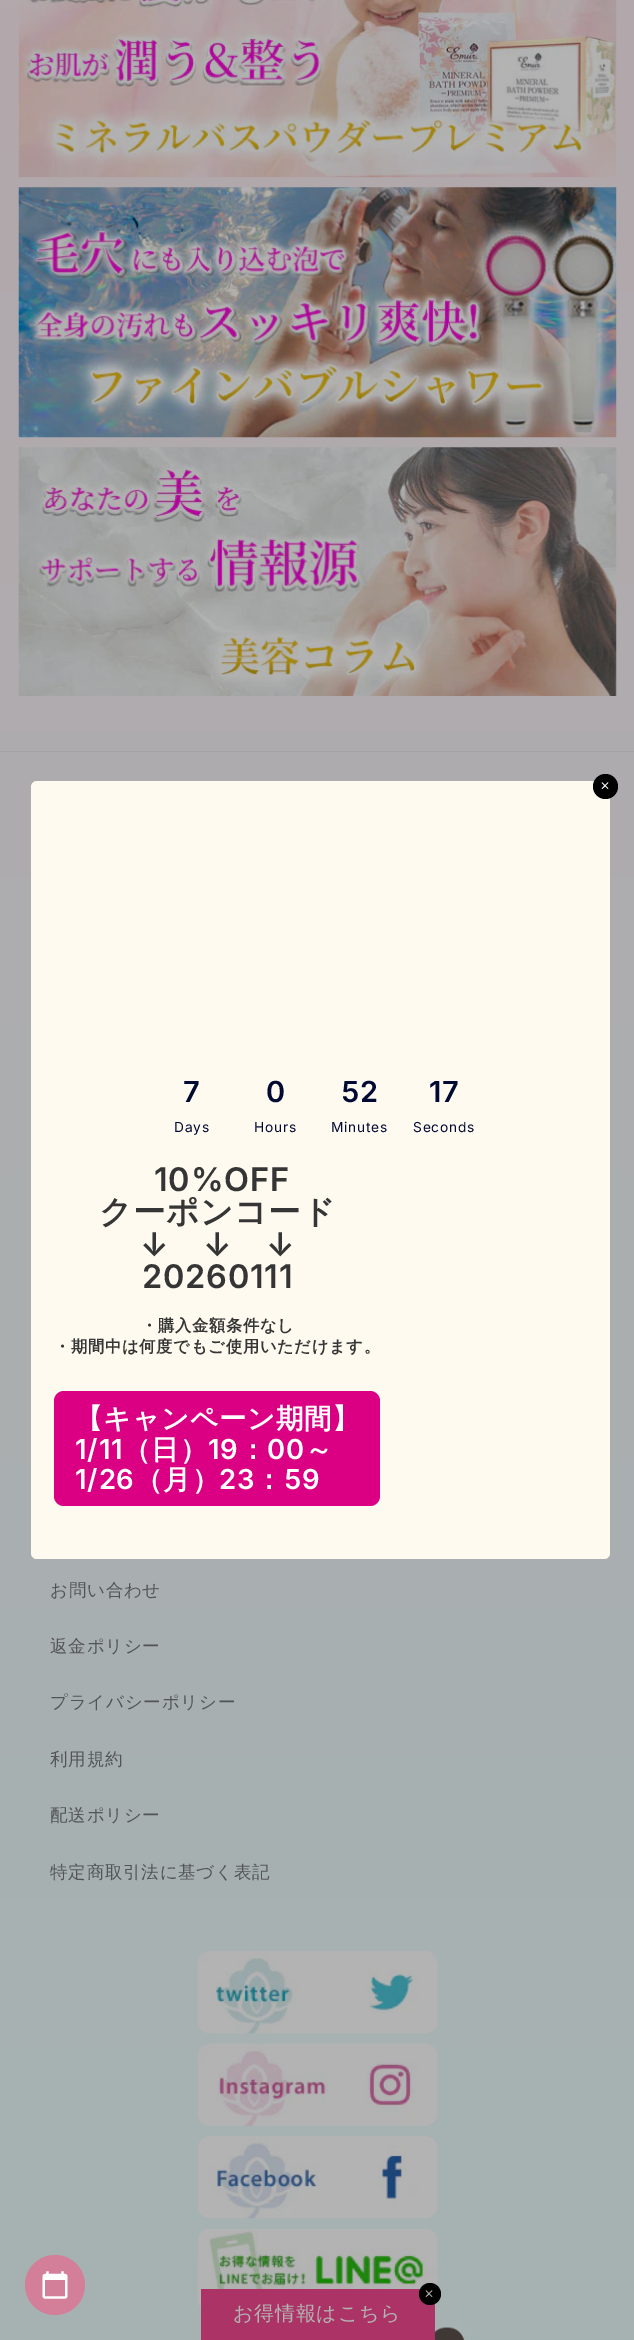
%!PS
<< /PageSize [634 2340] >> setpagedevice
/rgb { 3 { 255 div 3 1 roll } repeat setrgbcolor } def
/font { [ exch dup neg 0 0 3 -1 roll 0 0 ] selectfont } def
/text { moveto show } def
/circle { newpath 0 360 arc closepath } def
/roundrect { 5 dict begin { /r /h /w /y /x } { exch def } forall
  x r add y moveto x w add y 2 copy h add r arct x w add y h add x 1 index r arct
  x y h add x y r arct x y 2 copy exch w add exch r arct closepath end } def
/picture { 5 dict begin { /h /w /y /x /name } { exch def } forall
  gsave x y translate w h scale
  w h 8 [w 0 0 h 0 0] name (r) file false 3 colorimage grestore end } def
0 2340 translate 1 -1 scale
4 setmiterlimit
255 255 255 rgb
0 0 634 2340 rectfill
gsave 0 0 moveto 634 0 rlineto 0 2340 rlineto -634 0 rlineto closepath clip newpath
<< /ShadingType 2 /ColorSpace /DeviceRGB /Coords [317 0 318 2340] /Extend [true true] /Function << /FunctionType 2 /Domain [0 1] /C0 [0.702 0.659 0.675] /C1 [0.647 0.702 0.698] /N 1 >> >> shfill grestore
255 250 240 rgb
31 781 579 778 6 roundrect fill
0 0 0 rgb
605.5 786.5 12.5 circle fill
219 0 131 rgb
54 1391 326 115 10 roundrect fill
(img_07.rgb) 197 2228 241 79 picture
172 51 102 rgb
201 2289 234 51 rectfill
0 0 0 rgb
430 2294 11 circle fill
(img_01.rgb) 18 0 599 178 picture
(img_02.rgb) 18 187 599 251 picture
(img_03.rgb) 18 447 599 249 picture
165 162 164 rgb
0 751 634 1 rectfill
(img_04.rgb) 197 1951 241 83 picture
(img_05.rgb) 197 2043 241 83 picture
(img_06.rgb) 197 2136 241 83 picture
(img_08.rgb) 435 2327 30 13 picture
211 127 153 rgb
55 2285 30 circle fill
(img_09.rgb) 42 2271 26 28 picture
/DejaVuSans-Regular 12 font
255 255 255 rgb
(✕) 600 790 text
/Inter-SemiBold 29 font
1 10 51 rgb
183 1102 moveto 0.75 0 (7) ashow
/Inter-Regular 13.75 font
174 1132 moveto 0.75 0 (Days) ashow
/Inter-SemiBold 29 font
266 1102 moveto 0.75 0 (0) ashow
/Inter-Regular 13.75 font
254 1132 moveto 0.75 0 (Hours) ashow
/Inter-SemiBold 29 font
341 1102 moveto 0.75 0 (52) ashow
/Inter-Regular 13.75 font
331 1132 moveto 0.75 0 (Minutes) ashow
/Inter-SemiBold 29 font
429 1102 moveto 0.75 0 (17) ashow
/Inter-Regular 13.75 font
413 1132 moveto 0.75 0 (Seconds) ashow
/Inter-SemiBold 32.5 font
53 53 53 rgb
154 1191 moveto 0.75 0 (10%OFF) ashow
/WenQuanYiZenHei-Bold 32.5 font
99 1223 moveto 0.75 0 (クーポンコード) ashow
/Inter-SemiBold 32.5 font
140 1256 moveto 0.75 0 (↓) ashow
203 1256 moveto 0.75 0 (↓) ashow
266 1256 moveto 0.75 0 (↓) ashow
142 1288 moveto 0.75 0 (20260111) ashow
/WenQuanYiZenHei-Bold 16.25 font
141 1331 moveto 0.75 0 (・購入金額条件なし) ashow
54 1352 moveto 0.75 0 (・期間中は何度でもご使用いただけます。) ashow
/WenQuanYiZenHei-Bold 27.5 font
255 255 255 rgb
75 1428 moveto 0.75 0 (【キャンペーン期間】) ashow
/Inter-SemiBold 27.5 font
75 1459 moveto 0.75 0 (1/11) ashow
/WenQuanYiZenHei-Bold 27.5 font
123 1459 moveto 0.75 0 (（日）) ashow
/Inter-SemiBold 27.5 font
208 1459 moveto 0.75 0 (19) ashow
/WenQuanYiZenHei-Bold 27.5 font
239 1459 moveto 0.75 0 (：) ashow
/Inter-SemiBold 27.5 font
267 1459 moveto 0.75 0 (00) ashow
/WenQuanYiZenHei-Bold 27.5 font
305 1459 moveto 0.75 0 (～) ashow
/Inter-SemiBold 27.5 font
75 1489 moveto 0.75 0 (1/26) ashow
/WenQuanYiZenHei-Bold 27.5 font
135 1489 moveto 0.75 0 (（月）) ashow
/Inter-SemiBold 27.5 font
219 1489 moveto 0.75 0 (23) ashow
/WenQuanYiZenHei-Bold 27.5 font
255 1489 moveto 0.75 0 (：) ashow
/Inter-SemiBold 27.5 font
284 1489 moveto 0.75 0 (59) ashow
/DejaVuSans-Regular 12 font
179 179 179 rgb
(✕) 424 2298 text
/WenQuanYiZenHei-Medium 20 font
233 2320 moveto 0.75 0 (お得情報はこちら) ashow
/WenQuanYiZenHei-Medium 17.5 font
83 85 85 rgb
50 1596 moveto 0.75 0 (お問い合わせ) ashow
50 1652 moveto 0.75 0 (返金ポリシー) ashow
50 1708 moveto 0.75 0 (プライバシーポリシー) ashow
50 1765 moveto 0.75 0 (利用規約) ashow
50 1821 moveto 0.75 0 (配送ポリシー) ashow
50 1878 moveto 0.75 0 (特定商取引法に基づく表記) ashow
showpage
